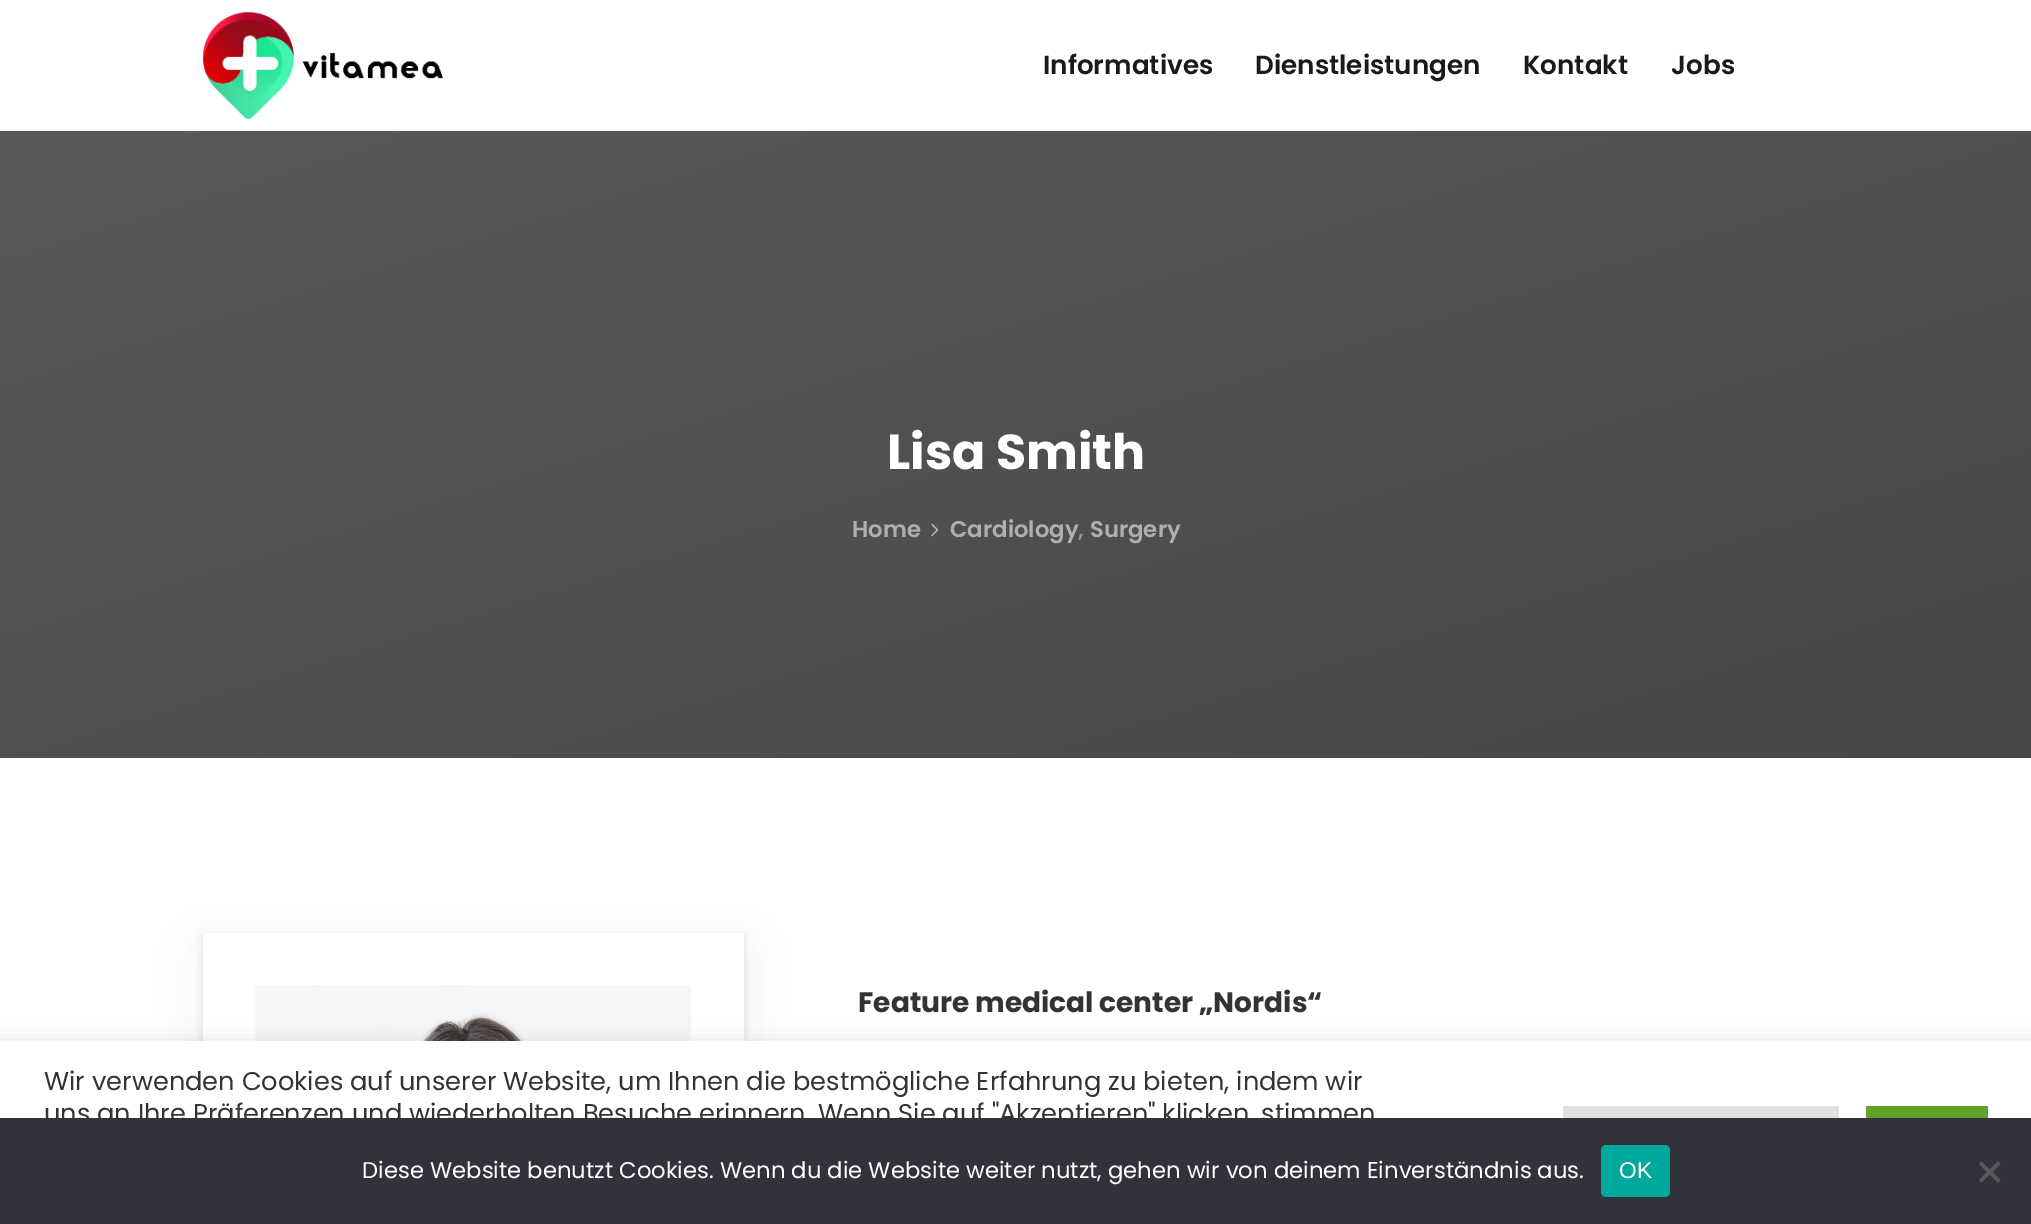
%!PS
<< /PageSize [2031 1224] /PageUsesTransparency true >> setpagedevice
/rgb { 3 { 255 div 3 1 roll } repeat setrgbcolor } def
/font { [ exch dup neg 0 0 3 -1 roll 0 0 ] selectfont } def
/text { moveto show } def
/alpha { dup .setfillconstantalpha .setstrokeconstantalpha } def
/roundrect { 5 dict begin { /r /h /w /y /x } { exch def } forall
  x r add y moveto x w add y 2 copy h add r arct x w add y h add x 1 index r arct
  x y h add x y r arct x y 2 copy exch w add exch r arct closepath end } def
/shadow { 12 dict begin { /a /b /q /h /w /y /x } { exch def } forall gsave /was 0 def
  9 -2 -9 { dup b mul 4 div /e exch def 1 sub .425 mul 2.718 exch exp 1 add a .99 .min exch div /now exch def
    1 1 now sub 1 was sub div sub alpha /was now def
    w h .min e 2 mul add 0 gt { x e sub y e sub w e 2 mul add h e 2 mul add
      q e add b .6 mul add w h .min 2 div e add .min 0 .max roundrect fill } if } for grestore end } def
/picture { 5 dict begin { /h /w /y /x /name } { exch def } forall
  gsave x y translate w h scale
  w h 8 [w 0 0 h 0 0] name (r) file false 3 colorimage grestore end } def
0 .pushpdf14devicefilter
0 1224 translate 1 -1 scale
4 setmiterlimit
255 255 255 rgb
0 0 2031 1224 rectfill
(img_01.rgb) 202 11 241 109 picture
gsave 0 131 moveto 2031 0 rlineto 0 627 rlineto -2031 0 rlineto closepath clip newpath
<< /ShadingType 2 /ColorSpace /DeviceRGB /Coords [1192 1017 839 -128] /Extend [true true] /Function << /FunctionType 2 /Domain [0 1] /C0 [0.278 0.278 0.278] /C1 [0.353 0.353 0.353] /N 1 >> >> shfill grestore
(img_02.rgb) 931 523 8 14 picture
0 0 0 rgb
203 950 541 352 0 26 0.05 shadow
203 936 541 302 0 4.5 0.1 shadow
255 255 255 rgb
203 933 541 108 rectfill
(img_03.rgb) 255 985 437 56 picture
172 171 171 rgb
0 1040 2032 183 0 9 0.3 shadow
255 255 255 rgb
0 1041 2031 77 rectfill
222 223 224 rgb
1563 1106 276 12 rectfill
97 162 41 rgb
1866 1106 122 12 rectfill
/Poppins-SemiBold 26.25 font
26 26 26 rgb
(Informatives) 1043 74 text
(Dienstleistungen) 1255 74 text
(Kontakt) 1523 74 text
(Jobs) 1671 74 text
/Poppins-Bold 49 font
255 255 255 rgb
(Lisa Smith) 887 469 text
/Poppins-SemiBold 22.75 font
175 175 175 rgb
(Home) 852 537 text
151 151 151 rgb
(,) 1078 537 text
175 175 175 rgb
(Cardiology) 950 537 text
(Surgery) 1090 537 text
/Poppins-Bold 28 font
51 51 51 rgb
(Feature medical center „Nordis“) 858 1012 text
/Poppins-Regular 25.67 font
(Wir verwenden Cookies auf unserer Website, um Ihnen die bestmögliche Erfahrung zu bieten, indem wir) 44 1090 text
(uns an Ihre Präferenzen und wiederholten Besuche erinnern. Wenn Sie auf "Akzeptieren" klicken, stimmen) 44 1122 text
50 50 58 rgb
0 1118 2031 106 rectfill
/Poppins-Regular 22.75 font
255 255 255 rgb
(Diese Website benutzt Cookies. Wenn du die Website weiter nutzt, gehen wir von deinem Einverständnis aus.) 362 1178 text
0 169 157 rgb
1601 1145 69 52 5 roundrect fill
/LiberationSans-Regular 22.75 font
255 255 255 rgb
(OK) 1619 1178 text
89 89 93 rgb
1998 1161.5 moveto 2.5 2.5 rlineto -19 18.5 rlineto -2.5 -2.5 rlineto closepath fill
1979 1164 moveto 2.5 -2.5 rlineto 19 18.5 rlineto -2.5 2.5 rlineto closepath fill
.poppdf14devicefilter showpage
